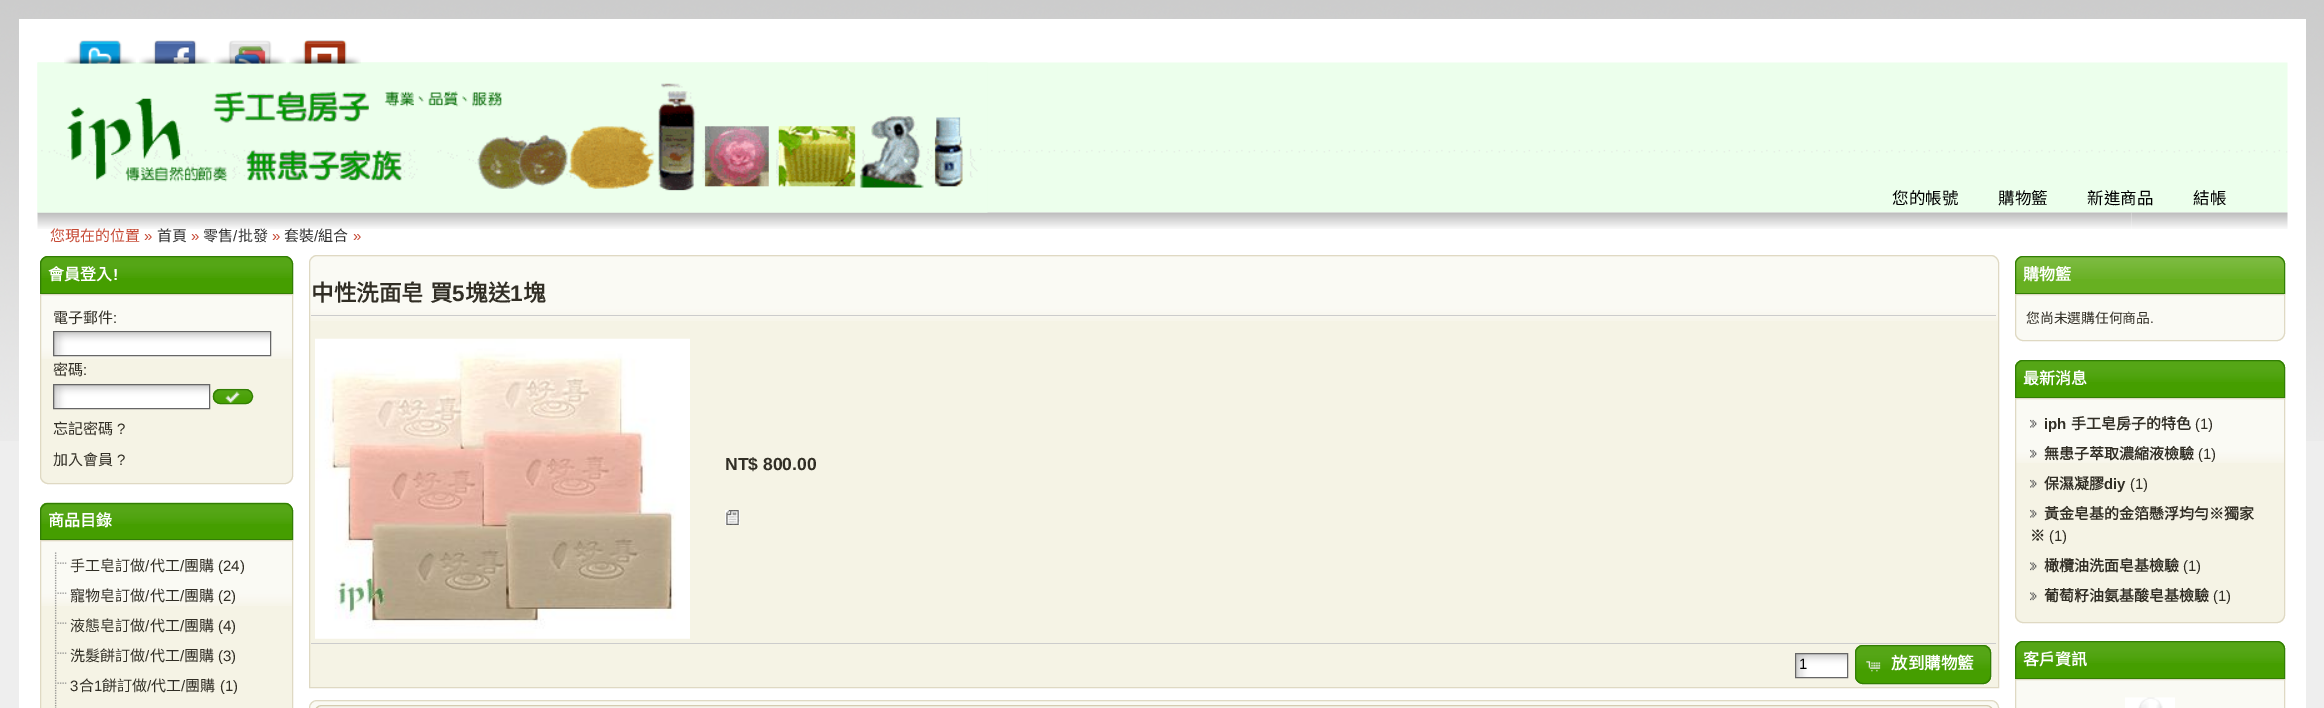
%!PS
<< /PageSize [2324 708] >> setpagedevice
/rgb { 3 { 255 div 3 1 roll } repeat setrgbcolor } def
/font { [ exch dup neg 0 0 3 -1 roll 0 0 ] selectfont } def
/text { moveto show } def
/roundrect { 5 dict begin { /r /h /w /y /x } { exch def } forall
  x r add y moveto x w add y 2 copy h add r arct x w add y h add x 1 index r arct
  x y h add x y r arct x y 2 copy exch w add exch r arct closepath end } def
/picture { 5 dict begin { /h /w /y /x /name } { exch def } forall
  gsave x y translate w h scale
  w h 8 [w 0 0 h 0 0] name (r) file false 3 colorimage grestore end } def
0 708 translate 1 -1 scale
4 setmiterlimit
238 238 238 rgb
0 0 2324 708 rectfill
(img_01.rgb) 0 0 2324 441 picture
255 255 255 rgb
19 19 2287 689 rectfill
(img_02.rgb) 37 62 2251 151 picture
(img_09.rgb) 37 212 2095 17 picture
(img_03.rgb) 37 62 951 151 picture
(img_04.rgb) 64 40 72 24 picture
(img_05.rgb) 139 40 72 24 picture
(img_06.rgb) 214 40 72 24 picture
(img_07.rgb) 289 40 72 24 picture
2131 213 1 15 rectfill
(img_08.rgb) 2131 212 157 17 picture
69 158 0 rgb
48 256 moveto 237 0 rlineto 4.5 0 8 3.5 8 8 rcurveto 0 30 rlineto -253 0 rlineto 0 -30 rlineto 0 -4.5 3.5 -8 8 -8 rcurveto closepath fill
(img_10.rgb) 40 256 253 22 picture
50 126 4 rgb
48 256.5 moveto 237 0 rlineto 4 0 7.5 3.5 7.5 7.5 rcurveto 0 29.5 rlineto -252 0 rlineto 0 -29.5 rlineto 0 -4 3.5 -7.5 7.5 -7.5 rcurveto closepath stroke
245 243 229 rgb
40 294 moveto 253 0 rlineto 0 182 rlineto 0 4.5 -3.5 8 -8 8 rcurveto -237 0 rlineto -4.5 0 -8 -3.5 -8 -8 rcurveto closepath fill
(img_11.rgb) 41 295 251 64 picture
223 217 195 rgb
40.5 294.5 moveto 252 0 rlineto 0 181.5 rlineto 0 4 -3.5 7.5 -7.5 7.5 rcurveto -237 0 rlineto -4 0 -7.5 -3.5 -7.5 -7.5 rcurveto closepath stroke
(img_12.rgb) 53 332 219 25 picture
102 102 102 rgb
53.5 331.5 217 24 rectstroke
(img_13.rgb) 54 385 155 23 picture
53.5 384.5 156 24 rectstroke
(img_14.rgb) 212 388 40 16 picture
50 126 4 rgb
213.5 389.5 39 14 7 roundrect stroke
(img_15.rgb) 225 391 16 12 picture
69 158 0 rgb
48 503 moveto 237 0 rlineto 4.5 0 8 3.5 8 8 rcurveto 0 29 rlineto -253 0 rlineto 0 -29 rlineto 0 -4.5 3.5 -8 8 -8 rcurveto closepath fill
(img_16.rgb) 40 502 253 22 picture
50 126 4 rgb
48 503.5 moveto 237 0 rlineto 4 0 7.5 3.5 7.5 7.5 rcurveto 0 28.5 rlineto -252 0 rlineto 0 -28.5 rlineto 0 -4 3.5 -7.5 7.5 -7.5 rcurveto closepath stroke
245 243 229 rgb
41 541 251 167 rectfill
(img_17.rgb) 41 541 251 65 picture
223 217 195 rgb
40.5 540.5 252 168 rectstroke
(img_18.rgb) 54 552 13 30 picture
(img_19.rgb) 54 582 13 30 picture
(img_20.rgb) 54 612 13 30 picture
(img_20.rgb) 54 642 13 30 picture
(img_20.rgb) 54 672 13 30 picture
(img_21.rgb) 54 702 3 6 picture
245 243 229 rgb
317 255 moveto 1674 0 rlineto 4.5 0 8 3.5 8 8 rcurveto 0 425 rlineto -1690 0 rlineto 0 -425 rlineto 0 -4.5 3.5 -8 8 -8 rcurveto closepath fill
(img_22.rgb) 309 256 1690 65 picture
223 217 195 rgb
317 255.5 moveto 1674 0 rlineto 4 0 7.5 3.5 7.5 7.5 rcurveto 0 424.5 rlineto -1689 0 rlineto 0 -424.5 rlineto 0 -4 3.5 -7.5 7.5 -7.5 rcurveto closepath stroke
204 204 204 rgb
311 315 1685 1 rectfill
(img_23.rgb) 315 338 375 301 picture
(img_24.rgb) 725 510 15 15 picture
311 643 1685 1 rectfill
(img_25.rgb) 1796 654 51 23 picture
102 102 102 rgb
1795.5 653.5 52 24 rectstroke
(img_26.rgb) 1855 645 137 39 picture
50 126 4 rgb
1855.5 645.5 135 38 7.5 roundrect stroke
(img_27.rgb) 1866 661 15 11 picture
(img_28.rgb) 309 701 1690 7 picture
223 217 195 rgb
309.5 700.5 1689 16 7.5 roundrect stroke
(img_29.rgb) 316 705 1676 3 picture
212 204 176 rgb
314.5 705.5 1679 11 7.5 roundrect stroke
103 176 33 rgb
2023 256 moveto 254 0 rlineto 4.5 0 8 3.5 8 8 rcurveto 0 30 rlineto -270 0 rlineto 0 -30 rlineto 0 -4.5 3.5 -8 8 -8 rcurveto closepath fill
(img_30.rgb) 2015 256 270 23 picture
50 126 4 rgb
2023 256.5 moveto 254 0 rlineto 4 0 7.5 3.5 7.5 7.5 rcurveto 0 29.5 rlineto -269 0 rlineto 0 -29.5 rlineto 0 -4 3.5 -7.5 7.5 -7.5 rcurveto closepath stroke
(img_31.rgb) 2015 295 270 46 picture
223 217 195 rgb
2015.5 294.5 moveto 269 0 rlineto 0 38.5 rlineto 0 4 -3.5 7.5 -7.5 7.5 rcurveto -254 0 rlineto -4 0 -7.5 -3.5 -7.5 -7.5 rcurveto closepath stroke
69 158 0 rgb
2023 360 moveto 254 0 rlineto 4.5 0 8 3.5 8 8 rcurveto 0 30 rlineto -270 0 rlineto 0 -30 rlineto 0 -4.5 3.5 -8 8 -8 rcurveto closepath fill
(img_32.rgb) 2015 360 270 22 picture
50 126 4 rgb
2023 360.5 moveto 254 0 rlineto 4 0 7.5 3.5 7.5 7.5 rcurveto 0 29.5 rlineto -269 0 rlineto 0 -29.5 rlineto 0 -4 3.5 -7.5 7.5 -7.5 rcurveto closepath stroke
245 243 229 rgb
2015 398 moveto 270 0 rlineto 0 217 rlineto 0 4.5 -3.5 8 -8 8 rcurveto -254 0 rlineto -4.5 0 -8 -3.5 -8 -8 rcurveto closepath fill
(img_33.rgb) 2016 399 268 64 picture
223 217 195 rgb
2015.5 398.5 moveto 269 0 rlineto 0 216.5 rlineto 0 4 -3.5 7.5 -7.5 7.5 rcurveto -254 0 rlineto -4 0 -7.5 -3.5 -7.5 -7.5 rcurveto closepath stroke
(img_34.rgb) 2030 419 7 9 picture
(img_35.rgb) 2030 449 7 9 picture
(img_36.rgb) 2030 479 7 9 picture
(img_36.rgb) 2030 509 7 9 picture
(img_37.rgb) 2030 562 7 9 picture
(img_37.rgb) 2030 592 7 9 picture
69 158 0 rgb
2023 641 moveto 254 0 rlineto 4.5 0 8 3.5 8 8 rcurveto 0 30 rlineto -270 0 rlineto 0 -30 rlineto 0 -4.5 3.5 -8 8 -8 rcurveto closepath fill
(img_38.rgb) 2015 641 270 22 picture
50 126 4 rgb
2023 641.5 moveto 254 0 rlineto 4 0 7.5 3.5 7.5 7.5 rcurveto 0 29.5 rlineto -269 0 rlineto 0 -29.5 rlineto 0 -4 3.5 -7.5 7.5 -7.5 rcurveto closepath stroke
250 250 244 rgb
2015.5 679.5 moveto 269 0 rlineto 0 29 rlineto -269 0 rlineto closepath gsave fill grestore
223 217 195 rgb
stroke
(img_39.rgb) 2125 697 50 11 picture
/NotoSansCJKTC-Regular 16.5 font
0 0 0 rgb
(您的帳號) 1892 204 text
(購物籃) 1998 204 text
(新進商品) 2087 204 text
(結帳) 2193 204 text
/NotoSansCJKTC-Regular 15 font
198 73 52 rgb
(您現在的位置) 50 241 text
/LiberationSans-Regular 15 font
(») 144 241 text
/NotoSansCJKTC-Regular 15 font
51 51 51 rgb
(首頁) 157 241 text
/LiberationSans-Regular 15 font
198 73 52 rgb
(») 191 241 text
/NotoSansCJKTC-Regular 15 font
51 51 51 rgb
(零售) 203 241 text
/LiberationSans-Regular 15 font
(/) 233 241 text
/NotoSansCJKTC-Regular 15 font
(批發) 238 241 text
/LiberationSans-Regular 15 font
198 73 52 rgb
(») 272 241 text
/NotoSansCJKTC-Regular 15 font
51 51 51 rgb
(套裝) 284 241 text
/LiberationSans-Regular 15 font
(/) 314 241 text
/NotoSansCJKTC-Regular 15 font
(組合) 318 241 text
/LiberationSans-Regular 15 font
198 73 52 rgb
(») 353 241 text
/NotoSansCJKTC-Bold 16 font
255 255 255 rgb
(會員登入) 48 280 text
/LiberationSans-Bold 16 font
(!) 113 280 text
/NotoSansCJKTC-Regular 15 font
49 46 37 rgb
(電子郵件) 53 323 text
/LiberationSans-Regular 15 font
(:) 113 323 text
/NotoSansCJKTC-Regular 15 font
(密碼) 53 375 text
/LiberationSans-Regular 15 font
(:) 83 375 text
/NotoSansCJKTC-Regular 15 font
(忘記密碼) 53 434 text
/LiberationSans-Regular 15 font
(?) 117 434 text
/NotoSansCJKTC-Regular 15 font
(加入會員) 53 465 text
/LiberationSans-Regular 15 font
(?) 117 465 text
/NotoSansCJKTC-Bold 16 font
255 255 255 rgb
(商品目錄) 48 526 text
/NotoSansCJKTC-Regular 15 font
49 46 37 rgb
(手工皂訂做) 70 571 text
/LiberationSans-Regular 15 font
(/) 145 571 text
/NotoSansCJKTC-Regular 15 font
(代工) 150 571 text
/LiberationSans-Regular 15 font
(/) 180 571 text
/NotoSansCJKTC-Regular 15 font
(團購) 184 571 text
/LiberationSans-Regular 15 font
(\(24\)) 218 571 text
/NotoSansCJKTC-Regular 15 font
(寵物皂訂做) 70 601 text
/LiberationSans-Regular 15 font
(/) 145 601 text
/NotoSansCJKTC-Regular 15 font
(代工) 150 601 text
/LiberationSans-Regular 15 font
(/) 180 601 text
/NotoSansCJKTC-Regular 15 font
(團購) 184 601 text
/LiberationSans-Regular 15 font
(\(2\)) 218 601 text
/NotoSansCJKTC-Regular 15 font
(液態皂訂做) 70 631 text
/LiberationSans-Regular 15 font
(/) 145 631 text
/NotoSansCJKTC-Regular 15 font
(代工) 150 631 text
/LiberationSans-Regular 15 font
(/) 180 631 text
/NotoSansCJKTC-Regular 15 font
(團購) 184 631 text
/LiberationSans-Regular 15 font
(\(4\)) 218 631 text
/NotoSansCJKTC-Regular 15 font
(洗髮餅訂做) 70 661 text
/LiberationSans-Regular 15 font
(/) 145 661 text
/NotoSansCJKTC-Regular 15 font
(代工) 150 661 text
/LiberationSans-Regular 15 font
(/) 180 661 text
/NotoSansCJKTC-Regular 15 font
(團購) 184 661 text
/LiberationSans-Regular 15 font
(\(3\)) 218 661 text
(3) 70 691 text
/NotoSansCJKTC-Regular 15 font
(合) 79 691 text
/LiberationSans-Regular 15 font
(1) 94 691 text
/NotoSansCJKTC-Regular 15 font
(餅訂做) 102 691 text
/LiberationSans-Regular 15 font
(/) 147 691 text
/NotoSansCJKTC-Regular 15 font
(代工) 151 691 text
/LiberationSans-Regular 15 font
(/) 181 691 text
/NotoSansCJKTC-Regular 15 font
(團購) 185 691 text
/LiberationSans-Regular 15 font
(\(1\)) 220 691 text
/NotoSansCJKTC-Bold 22.5 font
311 301 moveto 1 0 32 (中性洗面皂 買) widthshow
/LiberationSans-Bold 22.5 font
(5) 452 301 text
/NotoSansCJKTC-Bold 22.5 font
(塊送) 465 301 text
/LiberationSans-Bold 22.5 font
(1) 510 301 text
/NotoSansCJKTC-Bold 22.5 font
(塊) 523 301 text
/LiberationSans-Bold 17.5 font
(NT$ 800.00) 725 470 text
/LiberationSans-Regular 15 font
0 0 0 rgb
(1) 1799 669 text
/NotoSansCJKTC-Bold 16.5 font
255 255 255 rgb
(放到購物籃) 1891 669 text
/NotoSansCJKTC-Bold 16 font
(購物籃) 2023 280 text
/NotoSansCJKTC-Regular 13.75 font
49 46 37 rgb
(您尚未選購任何商品) 2026 323 text
/LiberationSans-Regular 13.75 font
(.) 2150 323 text
/NotoSansCJKTC-Bold 16 font
255 255 255 rgb
(最新消息) 2023 384 text
/LiberationSans-Bold 15 font
49 46 37 rgb
(iph) 2044 429 text
/NotoSansCJKTC-Bold 15 font
(手工皂房子的特色) 2071 429 text
/LiberationSans-Regular 15 font
(\(1\)) 2195 429 text
/NotoSansCJKTC-Bold 15 font
(無患子萃取濃縮液檢驗) 2044 459 text
/LiberationSans-Regular 15 font
(\(1\)) 2198 459 text
/NotoSansCJKTC-Bold 15 font
(保濕凝膠) 2044 489 text
/LiberationSans-Bold 15 font
(diy) 2104 489 text
/LiberationSans-Regular 15 font
(\(1\)) 2130 489 text
/NotoSansCJKTC-Bold 15 font
(黃金皂基的金箔懸浮均勻※獨家) 2044 519 text
(※) 2030 541 text
/LiberationSans-Regular 15 font
(\(1\)) 2049 541 text
/NotoSansCJKTC-Bold 15 font
(橄欖油洗面皂基檢驗) 2044 571 text
/LiberationSans-Regular 15 font
(\(1\)) 2183 571 text
/NotoSansCJKTC-Bold 15 font
(葡萄籽油氨基酸皂基檢驗) 2044 601 text
/LiberationSans-Regular 15 font
(\(1\)) 2213 601 text
/NotoSansCJKTC-Bold 16 font
255 255 255 rgb
(客戶資訊) 2023 665 text
showpage
